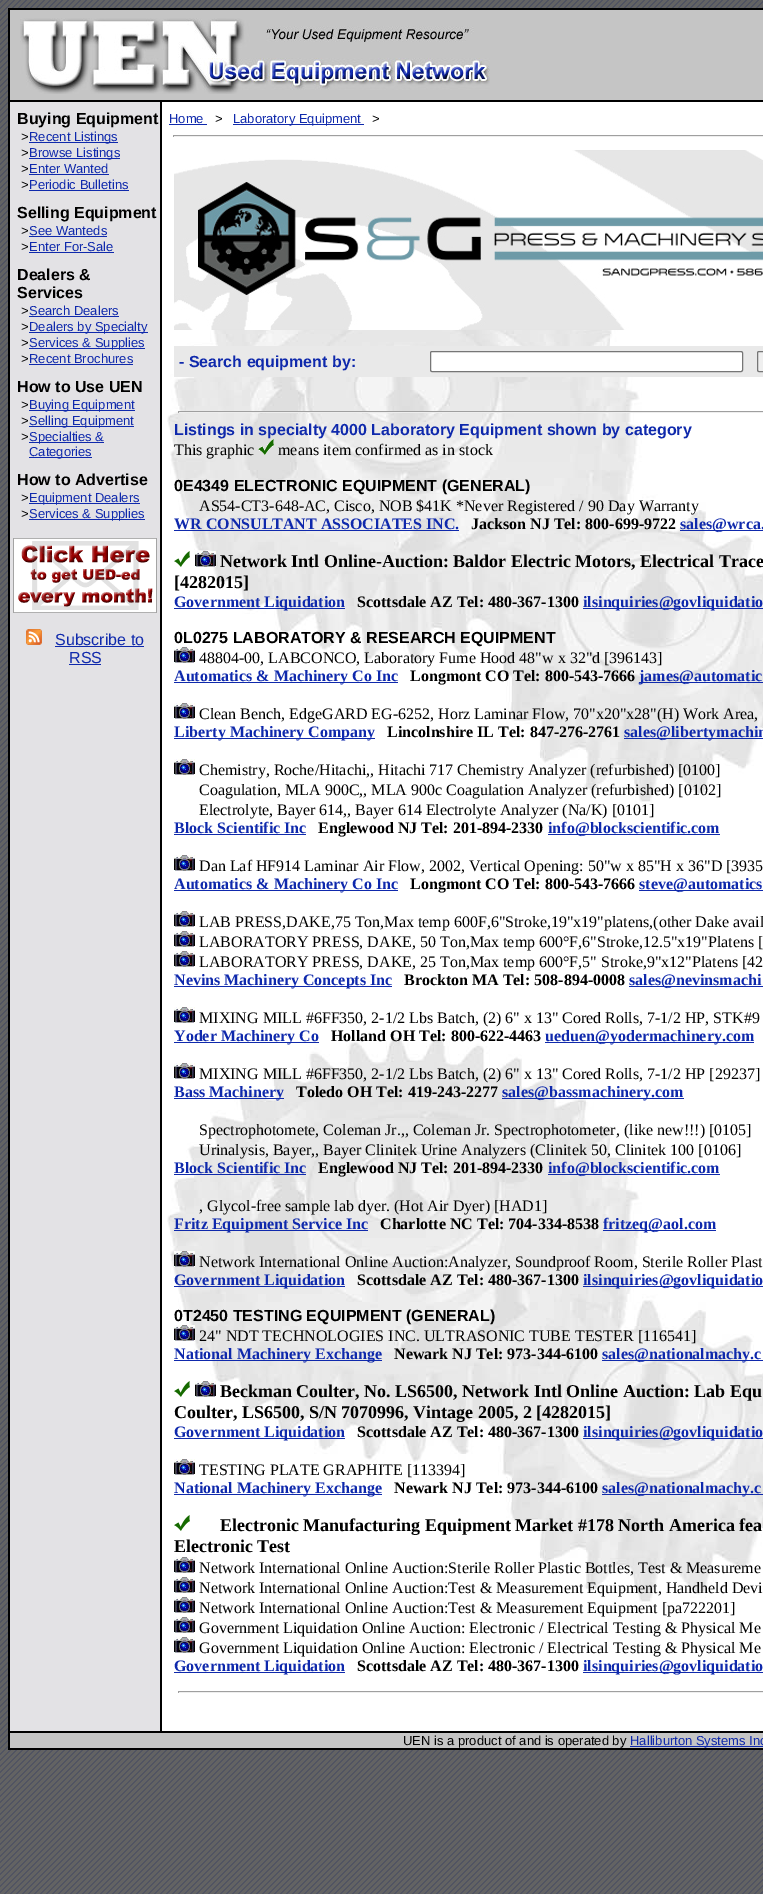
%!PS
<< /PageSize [763 1894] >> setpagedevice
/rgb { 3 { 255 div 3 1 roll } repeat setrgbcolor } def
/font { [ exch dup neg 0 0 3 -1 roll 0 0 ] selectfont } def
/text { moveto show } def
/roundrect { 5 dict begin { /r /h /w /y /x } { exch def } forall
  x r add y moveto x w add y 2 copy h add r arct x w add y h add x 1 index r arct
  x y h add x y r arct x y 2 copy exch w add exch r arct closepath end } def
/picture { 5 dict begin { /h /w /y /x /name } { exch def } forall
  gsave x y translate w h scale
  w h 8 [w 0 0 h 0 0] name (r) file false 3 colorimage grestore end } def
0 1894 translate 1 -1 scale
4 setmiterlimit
255 255 255 rgb
0 0 763 1894 rectfill
(img_01.rgb) 0 0 763 1894 picture
162 102 601 1629 rectfill
0 0 0 rgb
8 8 755 2 rectfill
8 10 2 90 rectfill
197 197 197 rgb
10 10 753 90 rectfill
(img_02.rgb) 20 18 470 76 picture
0 0 0 rgb
8 100 755 2 rectfill
8 102 2 1629 rectfill
227 226 229 rgb
10 102 150 1629 rectfill
15 41 172 rgb
29 142 89 1 rectfill
29 158 91 1 rectfill
29 174 80 1 rectfill
29 190 100 1 rectfill
29 236 78 1 rectfill
29 252 85 1 rectfill
29 316 90 1 rectfill
29 332 119 1 rectfill
29 348 116 1 rectfill
29 364 104 1 rectfill
29 410 106 1 rectfill
29 426 105 1 rectfill
29 442 75 1 rectfill
29 457 63 1 rectfill
29 503 111 1 rectfill
29 519 116 1 rectfill
(img_03.rgb) 13 538 144 75 picture
(img_04.rgb) 26 629 16 16 picture
55 646 89 1 rectfill
69 664 32 1 rectfill
0 0 0 rgb
160 102 2 1629 rectfill
(img_05.rgb) 167 238 596 1366 picture
15 41 172 rgb
169 124 38 1 rectfill
233 124 131 1 rectfill
159 159 159 rgb
173 135 590 1 rectfill
238 238 238 rgb
173 136 590 1 rectfill
159 159 159 rgb
173 135 1 2 rectfill
(img_06.rgb) 174 150 589 180 picture
233 233 233 rgb
174 346 589 31 rectfill
255 255 255 rgb
430.5 351.5 312 20 1.5 roundrect gsave fill grestore
118 118 118 rgb
stroke
239 239 239 rgb
757.5 351.5 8 20 1.5 roundrect gsave fill grestore
118 118 118 rgb
stroke
159 159 159 rgb
178 411 585 1 rectfill
238 238 238 rgb
178 412 585 1 rectfill
159 159 159 rgb
178 411 1 2 rectfill
(img_07.rgb) 258 439 16 16 picture
15 41 172 rgb
174 530 285 1 rectfill
680 530 83 1 rectfill
(img_08.rgb) 174 551 16 16 picture
(img_09.rgb) 195 551 21 16 picture
174 608 171 1 rectfill
583 608 180 1 rectfill
(img_09.rgb) 174 647 21 16 picture
174 682 224 1 rectfill
639 682 124 1 rectfill
(img_09.rgb) 174 703 21 16 picture
174 738 201 1 rectfill
624 738 139 1 rectfill
(img_09.rgb) 174 759 21 16 picture
174 834 132 1 rectfill
548 834 172 1 rectfill
(img_09.rgb) 174 855 21 16 picture
174 890 224 1 rectfill
639 890 124 1 rectfill
(img_09.rgb) 174 911 21 16 picture
(img_09.rgb) 174 931 21 16 picture
(img_09.rgb) 174 951 21 16 picture
174 986 218 1 rectfill
629 986 134 1 rectfill
(img_09.rgb) 174 1007 21 16 picture
174 1042 145 1 rectfill
545 1042 209 1 rectfill
(img_09.rgb) 174 1063 21 16 picture
174 1098 110 1 rectfill
502 1098 182 1 rectfill
174 1174 132 1 rectfill
548 1174 172 1 rectfill
174 1230 194 1 rectfill
603 1230 113 1 rectfill
(img_09.rgb) 174 1251 21 16 picture
174 1286 171 1 rectfill
583 1286 180 1 rectfill
(img_09.rgb) 174 1325 21 16 picture
174 1360 208 1 rectfill
602 1360 161 1 rectfill
(img_08.rgb) 174 1381 16 16 picture
(img_09.rgb) 195 1381 21 16 picture
174 1438 171 1 rectfill
583 1438 180 1 rectfill
(img_09.rgb) 174 1459 21 16 picture
174 1494 208 1 rectfill
602 1494 161 1 rectfill
(img_08.rgb) 174 1515 16 16 picture
(img_09.rgb) 174 1557 21 16 picture
(img_09.rgb) 174 1577 21 16 picture
(img_09.rgb) 174 1597 21 16 picture
(img_09.rgb) 174 1617 21 16 picture
(img_09.rgb) 174 1637 21 16 picture
174 1672 171 1 rectfill
583 1672 180 1 rectfill
159 159 159 rgb
178 1691 585 1 rectfill
238 238 238 rgb
178 1692 585 1 rectfill
159 159 159 rgb
178 1691 1 2 rectfill
0 0 0 rgb
8 1731 755 2 rectfill
8 1733 2 15 rectfill
197 197 197 rgb
10 1733 753 15 rectfill
15 41 172 rgb
630 1746 133 1 rectfill
0 0 0 rgb
8 1748 755 2 rectfill
/LiberationSans-Bold 16 font
(Buying Equipment) 17 124 text
/LiberationSans-Regular 13 font
(>) 21 141 text
15 41 172 rgb
(Recent Listings) 29 141 text
0 0 0 rgb
(>) 21 157 text
15 41 172 rgb
(Browse Listings) 29 157 text
0 0 0 rgb
(>) 21 173 text
15 41 172 rgb
(Enter Wanted) 29 173 text
0 0 0 rgb
(>) 21 189 text
15 41 172 rgb
(Periodic Bulletins) 29 189 text
/LiberationSans-Bold 16 font
0 0 0 rgb
(Selling Equipment) 17 218 text
/LiberationSans-Regular 13 font
(>) 21 235 text
15 41 172 rgb
(See Wanteds) 29 235 text
0 0 0 rgb
(>) 21 251 text
15 41 172 rgb
(Enter For-Sale) 29 251 text
/LiberationSans-Bold 16 font
0 0 0 rgb
(Dealers &) 17 280 text
(Services) 17 298 text
/LiberationSans-Regular 13 font
(>) 21 315 text
15 41 172 rgb
(Search Dealers) 29 315 text
0 0 0 rgb
(>) 21 331 text
15 41 172 rgb
(Dealers by Specialty) 29 331 text
0 0 0 rgb
(>) 21 347 text
15 41 172 rgb
(Services & Supplies) 29 347 text
0 0 0 rgb
(>) 21 363 text
15 41 172 rgb
(Recent Brochures) 29 363 text
/LiberationSans-Bold 16 font
0 0 0 rgb
(How to Use UEN) 17 392 text
/LiberationSans-Regular 13 font
(>) 21 409 text
15 41 172 rgb
(Buying Equipment) 29 409 text
0 0 0 rgb
(>) 21 425 text
15 41 172 rgb
(Selling Equipment) 29 425 text
0 0 0 rgb
(>) 21 441 text
15 41 172 rgb
(Specialties &) 29 441 text
(Categories) 29 456 text
/LiberationSans-Bold 16 font
0 0 0 rgb
(How to Advertise) 17 485 text
/LiberationSans-Regular 13 font
(>) 21 502 text
15 41 172 rgb
(Equipment Dealers) 29 502 text
0 0 0 rgb
(>) 21 518 text
15 41 172 rgb
(Services & Supplies) 29 518 text
/LiberationSans-Regular 16 font
(Subscribe to) 55 645 text
(RSS) 69 663 text
/LiberationSans-Regular 13 font
(Home) 169 123 text
0 0 0 rgb
(>) 215 123 text
15 41 172 rgb
(Laboratory Equipment) 233 123 text
0 0 0 rgb
(>) 372 123 text
/LiberationSans-Bold 16 font
15 41 172 rgb
(- Search equipment by:) 179 367 text
(Listings in specialty 4000 Laboratory Equipment shown by category) 174 435 text
/LiberationSerif-Regular 16 font
0 0 0 rgb
(This graphic) 174 455 text
(means item confirmed as in stock) 278 455 text
/LiberationSans-Bold 16 font
(0E4349 ELECTRONIC EQUIPMENT \(GENERAL\)) 174 491 text
/LiberationSerif-Regular 16 font
(AS54-CT3-648-AC, Cisco, NOB $41K *Never Registered / 90 Day Warranty) 199 511 text
/LiberationSerif-Bold 16 font
15 41 172 rgb
(WR CONSULTANT ASSOCIATES INC.) 174 529 text
0 0 0 rgb
(Jackson NJ Tel: 800-699-9722) 471 529 text
15 41 172 rgb
(sales@wrca.) 680 529 text
/LiberationSerif-Bold 18 font
0 0 0 rgb
(Network Intl Online-Auction: Baldor Electric Motors, Electrical Trace) 220 567 text
([4282015]) 174 588 text
/LiberationSerif-Bold 16 font
15 41 172 rgb
(Government Liquidation) 174 607 text
0 0 0 rgb
(Scottsdale AZ Tel: 480-367-1300) 357 607 text
15 41 172 rgb
(ilsinquiries@govliquidatio) 583 607 text
/LiberationSans-Bold 16 font
0 0 0 rgb
(0L0275 LABORATORY & RESEARCH EQUIPMENT) 174 643 text
/LiberationSerif-Regular 16 font
(48804-00, LABCONCO, Laboratory Fume Hood 48"w x 32"d [396143]) 199 663 text
/LiberationSerif-Bold 16 font
15 41 172 rgb
(Automatics & Machinery Co Inc) 174 681 text
0 0 0 rgb
(Longmont CO Tel: 800-543-7666) 410 681 text
15 41 172 rgb
(james@automatic) 639 681 text
/LiberationSerif-Regular 16 font
0 0 0 rgb
(Clean Bench, EdgeGARD EG-6252, Horz Laminar Flow, 70"x20"x28"\(H\) Work Area,) 199 719 text
/LiberationSerif-Bold 16 font
15 41 172 rgb
(Liberty Machinery Company) 174 737 text
0 0 0 rgb
(Lincolnshire IL Tel: 847-276-2761) 387 737 text
15 41 172 rgb
(sales@libertymachin) 624 737 text
/LiberationSerif-Regular 16 font
0 0 0 rgb
(Chemistry, Roche/Hitachi,, Hitachi 717 Chemistry Analyzer \(refurbished\) [0100]) 199 775 text
(Coagulation, MLA 900C,, MLA 900c Coagulation Analyzer \(refurbished\) [0102]) 199 795 text
(Electrolyte, Bayer 614,, Bayer 614 Electrolyte Analyzer \(Na/K\) [0101]) 199 815 text
/LiberationSerif-Bold 16 font
15 41 172 rgb
(Block Scientific Inc) 174 833 text
0 0 0 rgb
(Englewood NJ Tel: 201-894-2330) 318 833 text
15 41 172 rgb
(info@blockscientific.com) 548 833 text
/LiberationSerif-Regular 16 font
0 0 0 rgb
(Dan Laf HF914 Laminar Air Flow, 2002, Vertical Opening: 50"w x 85"H x 36"D [3935) 199 871 text
/LiberationSerif-Bold 16 font
15 41 172 rgb
(Automatics & Machinery Co Inc) 174 889 text
0 0 0 rgb
(Longmont CO Tel: 800-543-7666) 410 889 text
15 41 172 rgb
(steve@automatics) 639 889 text
/LiberationSerif-Regular 16 font
0 0 0 rgb
(LAB PRESS,DAKE,75 Ton,Max temp 600F,6"Stroke,19"x19"platens,\(other Dake avail) 199 927 text
(LABORATORY PRESS, DAKE, 50 Ton,Max temp 600°F,6"Stroke,12.5"x19"Platens [) 199 947 text
(LABORATORY PRESS, DAKE, 25 Ton,Max temp 600°F,5" Stroke,9"x12"Platens [42) 199 967 text
/LiberationSerif-Bold 16 font
15 41 172 rgb
(Nevins Machinery Concepts Inc) 174 985 text
0 0 0 rgb
(Brockton MA Tel: 508-894-0008) 404 985 text
15 41 172 rgb
(sales@nevinsmachi) 629 985 text
/LiberationSerif-Regular 16 font
0 0 0 rgb
(MIXING MILL #6FF350, 2-1/2 Lbs Batch, \(2\) 6" x 13" Cored Rolls, 7-1/2 HP, STK#9) 199 1023 text
/LiberationSerif-Bold 16 font
15 41 172 rgb
(Yoder Machinery Co) 174 1041 text
0 0 0 rgb
(Holland OH Tel: 800-622-4463) 331 1041 text
15 41 172 rgb
(ueduen@yodermachinery.com) 545 1041 text
/LiberationSerif-Regular 16 font
0 0 0 rgb
(MIXING MILL #6FF350, 2-1/2 Lbs Batch, \(2\) 6" x 13" Cored Rolls, 7-1/2 HP [29237]) 199 1079 text
/LiberationSerif-Bold 16 font
15 41 172 rgb
(Bass Machinery) 174 1097 text
0 0 0 rgb
(Toledo OH Tel: 419-243-2277) 296 1097 text
15 41 172 rgb
(sales@bassmachinery.com) 502 1097 text
/LiberationSerif-Regular 16 font
0 0 0 rgb
(Spectrophotomete, Coleman Jr.,, Coleman Jr. Spectrophotometer, \(like new!!!\) [0105]) 199 1135 text
(Urinalysis, Bayer,, Bayer Clinitek Urine Analyzers \(Clinitek 50, Clinitek 100 [0106]) 199 1155 text
/LiberationSerif-Bold 16 font
15 41 172 rgb
(Block Scientific Inc) 174 1173 text
0 0 0 rgb
(Englewood NJ Tel: 201-894-2330) 318 1173 text
15 41 172 rgb
(info@blockscientific.com) 548 1173 text
/LiberationSerif-Regular 16 font
0 0 0 rgb
(, Glycol-free sample lab dyer. \(Hot Air Dyer\) [HAD1]) 199 1211 text
/LiberationSerif-Bold 16 font
15 41 172 rgb
(Fritz Equipment Service Inc) 174 1229 text
0 0 0 rgb
(Charlotte NC Tel: 704-334-8538) 380 1229 text
15 41 172 rgb
(fritzeq@aol.com) 603 1229 text
/LiberationSerif-Regular 16 font
0 0 0 rgb
(Network International Online Auction:Analyzer, Soundproof Room, Sterile Roller Plast) 199 1267 text
/LiberationSerif-Bold 16 font
15 41 172 rgb
(Government Liquidation) 174 1285 text
0 0 0 rgb
(Scottsdale AZ Tel: 480-367-1300) 357 1285 text
15 41 172 rgb
(ilsinquiries@govliquidatio) 583 1285 text
/LiberationSans-Bold 16 font
0 0 0 rgb
(0T2450 TESTING EQUIPMENT \(GENERAL\)) 174 1321 text
/LiberationSerif-Regular 16 font
(24" NDT TECHNOLOGIES INC. ULTRASONIC TUBE TESTER [116541]) 199 1341 text
/LiberationSerif-Bold 16 font
15 41 172 rgb
(National Machinery Exchange) 174 1359 text
0 0 0 rgb
(Newark NJ Tel: 973-344-6100) 394 1359 text
15 41 172 rgb
(sales@nationalmachy.c) 602 1359 text
/LiberationSerif-Bold 18 font
0 0 0 rgb
(Beckman Coulter, No. LS6500, Network Intl Online Auction: Lab Equ) 220 1397 text
(Coulter, LS6500, S/N 7070996, Vintage 2005, 2 [4282015]) 174 1418 text
/LiberationSerif-Bold 16 font
15 41 172 rgb
(Government Liquidation) 174 1437 text
0 0 0 rgb
(Scottsdale AZ Tel: 480-367-1300) 357 1437 text
15 41 172 rgb
(ilsinquiries@govliquidatio) 583 1437 text
/LiberationSerif-Regular 16 font
0 0 0 rgb
(TESTING PLATE GRAPHITE [113394]) 199 1475 text
/LiberationSerif-Bold 16 font
15 41 172 rgb
(National Machinery Exchange) 174 1493 text
0 0 0 rgb
(Newark NJ Tel: 973-344-6100) 394 1493 text
15 41 172 rgb
(sales@nationalmachy.c) 602 1493 text
/LiberationSerif-Bold 18 font
0 0 0 rgb
(Electronic Manufacturing Equipment Market #178 North America fea) 220 1531 text
(Electronic Test) 174 1552 text
/LiberationSerif-Regular 16 font
(Network International Online Auction:Sterile Roller Plastic Bottles, Test & Measureme) 199 1573 text
(Network International Online Auction:Test & Measurement Equipment, Handheld Devi) 199 1593 text
(Network International Online Auction:Test & Measurement Equipment [pa722201]) 199 1613 text
(Government Liquidation Online Auction: Electronic / Electrical Testing & Physical Me) 199 1633 text
(Government Liquidation Online Auction: Electronic / Electrical Testing & Physical Me) 199 1653 text
/LiberationSerif-Bold 16 font
15 41 172 rgb
(Government Liquidation) 174 1671 text
0 0 0 rgb
(Scottsdale AZ Tel: 480-367-1300) 357 1671 text
15 41 172 rgb
(ilsinquiries@govliquidatio) 583 1671 text
/LiberationSans-Regular 13 font
0 0 0 rgb
(UEN is a product of and is operated by) 403 1745 text
15 41 172 rgb
(Halliburton Systems Inc) 630 1745 text
showpage
